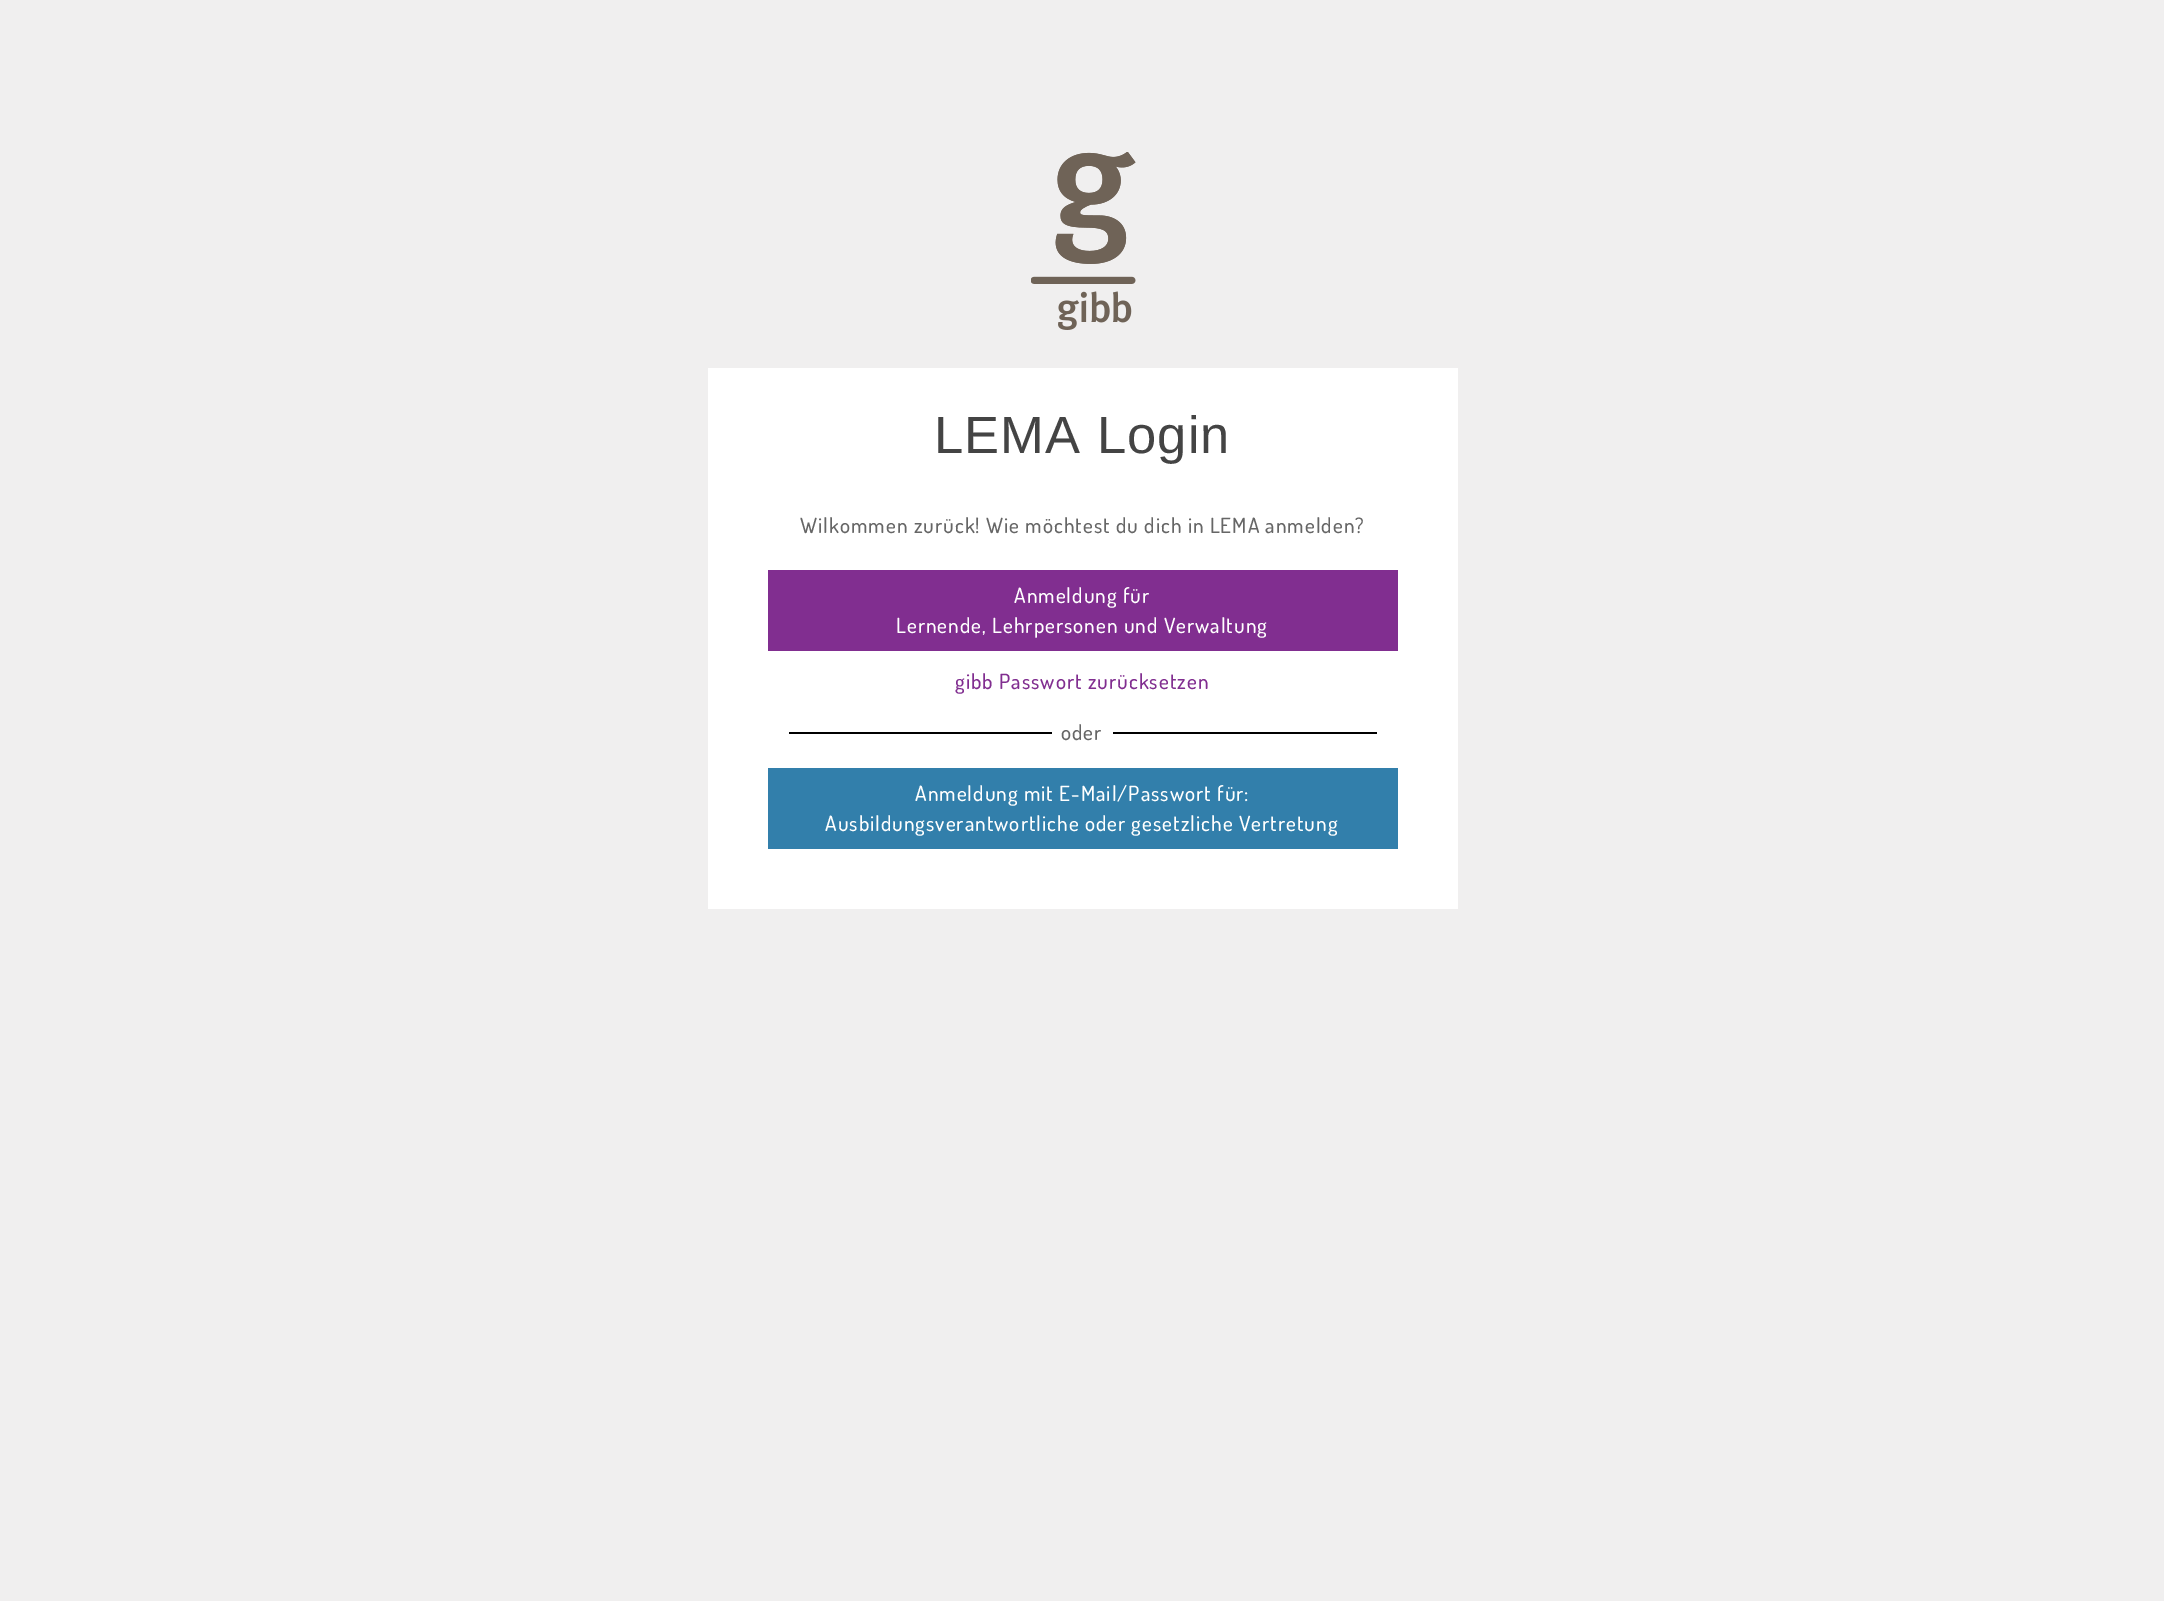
%!PS
<< /PageSize [2164 1601] >> setpagedevice
/rgb { 3 { 255 div 3 1 roll } repeat setrgbcolor } def
/font { [ exch dup neg 0 0 3 -1 roll 0 0 ] selectfont } def
/picture { 5 dict begin { /h /w /y /x /name } { exch def } forall
  gsave x y translate w h scale
  w h 8 [w 0 0 h 0 0] name (r) file false 3 colorimage grestore end } def
0 1601 translate 1 -1 scale
4 setmiterlimit
240 239 239 rgb
0 0 2164 1601 rectfill
(img_01.rgb) 1031 152 105 178 picture
255 255 255 rgb
708 368 750 541 rectfill
129 46 144 rgb
768 570 630 81 rectfill
0 0 0 rgb
789 732 263 2 rectfill
1113 732 264 2 rectfill
50 127 171 rgb
768 768 630 81 rectfill
/LiberationSans-Regular 52.5 font
68 68 68 rgb
934 453 moveto 1.05 0 (LEMA Login) ashow
/Dosis-Medium 21 font
102 102 102 rgb
800 533 moveto 1.05 0 (Wilkommen zurück! Wie möchtest du dich in LEMA anmelden?) ashow
255 255 255 rgb
1014 603 moveto 1.05 0 (Anmeldung für) ashow
896 633 moveto 1.05 0 (Lernende, Lehrpersonen und Verwaltung) ashow
129 46 144 rgb
955 689 moveto 1.05 0 (gibb Passwort zurücksetzen) ashow
102 102 102 rgb
1061 740 moveto 1.05 0 (oder) ashow
255 255 255 rgb
915 801 moveto 1.05 0 (Anmeldung mit E-Mail/Passwort für:) ashow
825 831 moveto 1.05 0 (Ausbildungsverantwortliche oder gesetzliche Vertretung) ashow
showpage
